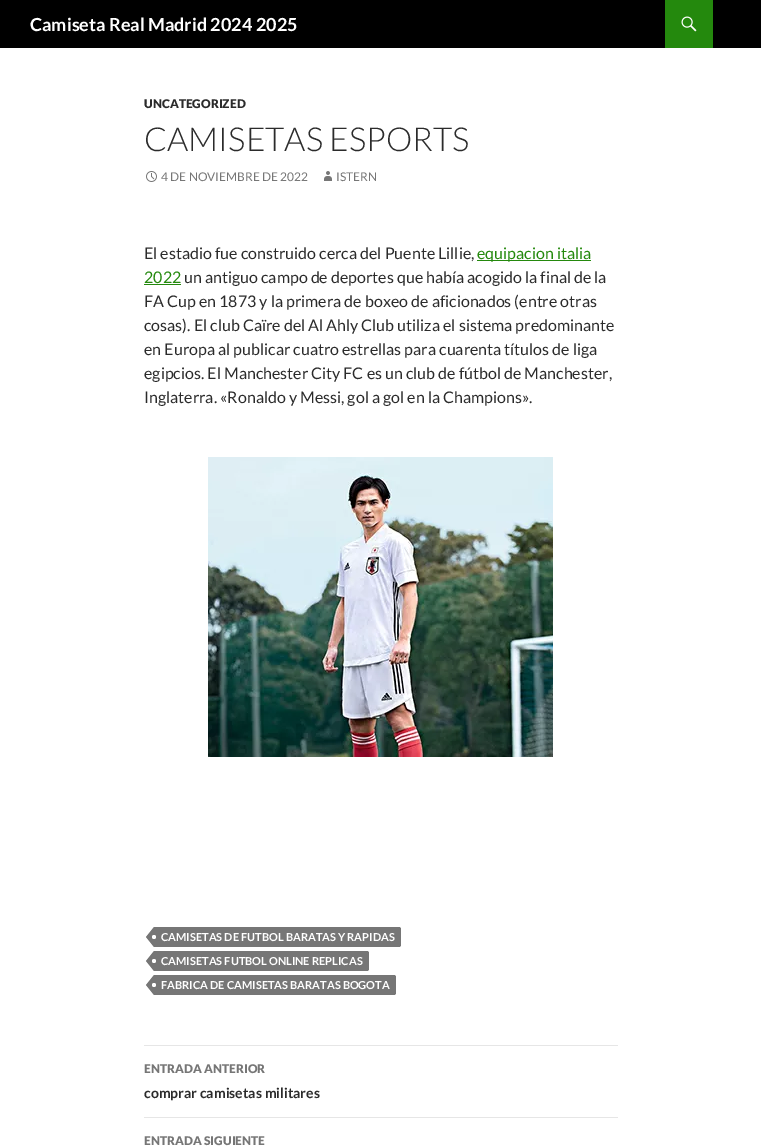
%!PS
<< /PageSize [761 1148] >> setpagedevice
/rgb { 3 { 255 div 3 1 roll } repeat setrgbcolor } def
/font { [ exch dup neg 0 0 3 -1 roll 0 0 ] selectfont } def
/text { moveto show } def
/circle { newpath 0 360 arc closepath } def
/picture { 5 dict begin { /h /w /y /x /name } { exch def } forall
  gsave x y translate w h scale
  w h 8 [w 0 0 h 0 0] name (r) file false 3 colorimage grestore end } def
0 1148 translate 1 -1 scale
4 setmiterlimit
255 255 255 rgb
0 0 761 1148 rectfill
0 0 0 rgb
0 0 761 48 rectfill
36 137 13 rgb
665 0 48 48 rectfill
(img_01.rgb) 681 16 16 16 picture
(img_02.rgb) 146 171 11 11 picture
(img_03.rgb) 324 171 8 10 picture
477 260 114 1 rectfill
144 284 37 1 rectfill
(img_04.rgb) 208 457 345 300 picture
118 118 118 rgb
154 927 moveto 245 0 rlineto 1 0 2 1 2 2 rcurveto 0 16 rlineto 0 1 -1 2 -2 2 rcurveto -245 0 rlineto closepath fill
154 927 moveto 0 20 rlineto -8 -10 rlineto closepath fill
255 255 255 rgb
154 937 2 circle fill
118 118 118 rgb
154 951 moveto 213 0 rlineto 1 0 2 1 2 2 rcurveto 0 16 rlineto 0 1 -1 2 -2 2 rcurveto -213 0 rlineto closepath fill
154 951 moveto 0 20 rlineto -8 -10 rlineto closepath fill
255 255 255 rgb
154 961 2 circle fill
118 118 118 rgb
154 975 moveto 240 0 rlineto 1 0 2 1 2 2 rcurveto 0 16 rlineto 0 1 -1 2 -2 2 rcurveto -240 0 rlineto closepath fill
154 975 moveto 0 20 rlineto -8 -10 rlineto closepath fill
255 255 255 rgb
154 985 2 circle fill
230 230 230 rgb
144 1045 474 1 rectfill
144 1117 474 1 rectfill
/Lato-Bold 18 font
255 255 255 rgb
(Camiseta Real Madrid 2024 2025) 30 31 text
/Lato-Black 12 font
43 43 43 rgb
(UNCATEGORIZED) 144 108 text
/Lato-Light 33 font
(CAMISETAS ESPORTS) 144 151 text
/Lato-Regular 12 font
118 118 118 rgb
(4 DE NOVIEMBRE DE 2022) 161 181 text
(ISTERN) 336 181 text
/Lato-Regular 16 font
43 43 43 rgb
(El estadio fue construido cerca del Puente Lillie,) 144 259 text
36 137 13 rgb
(equipacion italia) 477 259 text
(2022) 144 283 text
43 43 43 rgb
(un antiguo campo de deportes que había acogido la final de la) 184 283 text
(FA Cup en 1873 y la primera de boxeo de aficionados \(entre otras) 144 307 text
(cosas\). El club Caïre del Al Ahly Club utiliza el sistema predominante) 144 331 text
(en Europa al publicar cuatro estrellas para cuarenta títulos de liga) 144 355 text
(egipcios. El Manchester City FC es un club de fútbol de Manchester,) 144 379 text
(Inglaterra. «Ronaldo y Messi, gol a gol en la Champions».) 144 403 text
/Lato-Bold 11 font
255 255 255 rgb
(CAMISETAS DE FUTBOL BARATAS Y RAPIDAS) 161 941 text
(CAMISETAS FUTBOL ONLINE REPLICAS) 161 965 text
(FABRICA DE CAMISETAS BARATAS BOGOTA) 161 989 text
/Lato-Black 12 font
118 118 118 rgb
(ENTRADA ANTERIOR) 144 1073 text
/Lato-Bold 14 font
43 43 43 rgb
(comprar camisetas militares) 144 1098 text
/Lato-Black 12 font
118 118 118 rgb
(ENTRADA SIGUIENTE) 144 1145 text
showpage
